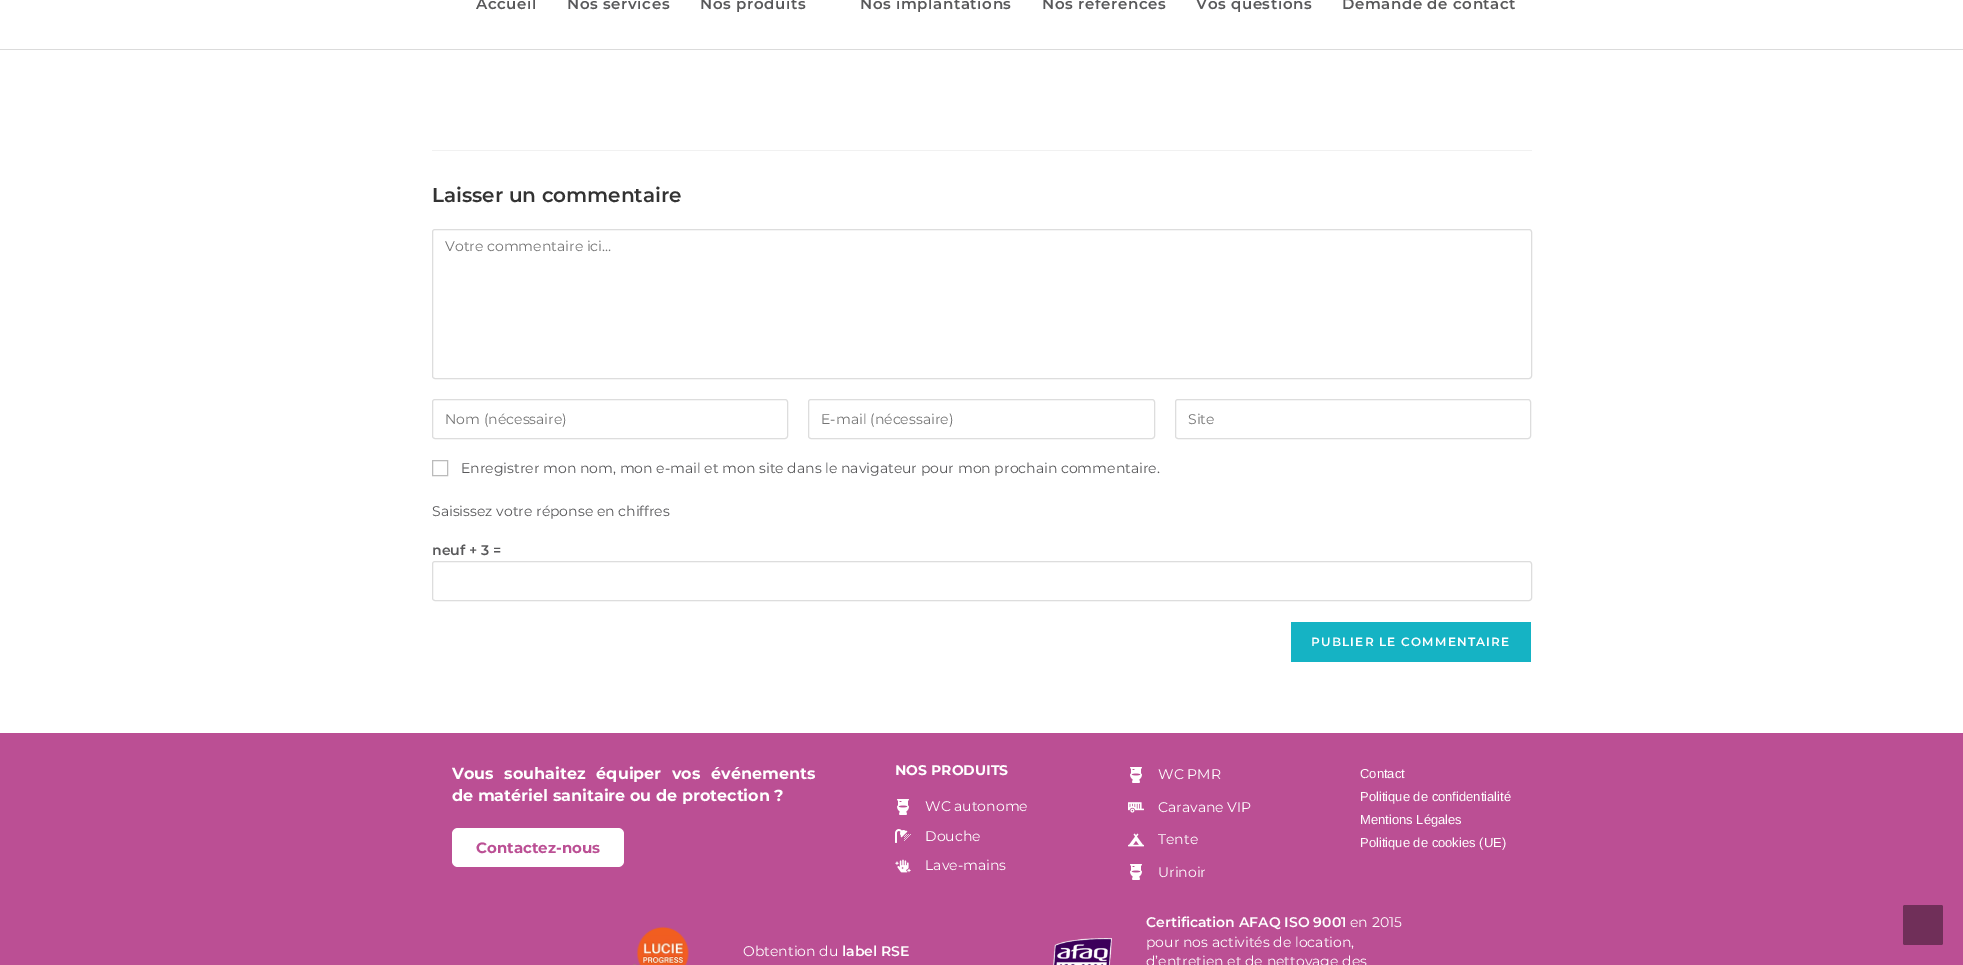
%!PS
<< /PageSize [1963 965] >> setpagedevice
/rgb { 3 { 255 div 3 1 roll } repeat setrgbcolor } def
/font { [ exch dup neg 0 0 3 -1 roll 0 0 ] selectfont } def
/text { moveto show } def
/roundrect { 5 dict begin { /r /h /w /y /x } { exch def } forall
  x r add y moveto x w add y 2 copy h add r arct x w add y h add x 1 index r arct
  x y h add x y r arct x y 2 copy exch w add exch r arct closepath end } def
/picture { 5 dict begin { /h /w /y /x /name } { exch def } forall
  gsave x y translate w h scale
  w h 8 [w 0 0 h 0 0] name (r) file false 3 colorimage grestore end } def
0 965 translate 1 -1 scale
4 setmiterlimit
255 255 255 rgb
0 0 1963 965 rectfill
219 219 219 rgb
0 49 1963 1 rectfill
241 241 241 rgb
432 150 1100 1 rectfill
221 221 221 rgb
432.5 229.5 1099 149 2.5 roundrect stroke
432.5 399.5 355 39 2.5 roundrect stroke
808.5 399.5 346 39 2.5 roundrect stroke
1175.5 399.5 355 39 2.5 roundrect stroke
187 187 187 rgb
432.5 460.5 15 15 rectstroke
221 221 221 rgb
432.5 561.5 1099 39 2.5 roundrect stroke
21 179 196 rgb
1291 622 240 40 rectfill
187 79 148 rgb
0 733 1963 232 rectfill
255 255 255 rgb
452 828 172 39 6 roundrect fill
(img_01.rgb) 897 799 12 16 picture
(img_02.rgb) 895 829 16 14 picture
(img_03.rgb) 895 859 16 14 picture
(img_01.rgb) 1130 767 12 16 picture
(img_04.rgb) 1128 802 16 11 picture
(img_05.rgb) 1128 833 16 14 picture
(img_01.rgb) 1130 864 12 16 picture
(img_06.rgb) 633 926 56 39 picture
(img_07.rgb) 1053 938 59 27 picture
112 47 89 rgb
1903 905 40 40 2 roundrect fill
/Montserrat-SemiBold 15 font
88 88 90 rgb
476 9 moveto 0.6 0 (Accueil) ashow
567 9 moveto 0.6 0 (Nos services) ashow
700 9 moveto 0.6 0 (Nos produits) ashow
860 9 moveto 0.6 0 (Nos implantations) ashow
1042 9 moveto 0.6 0 (Nos références) ashow
1196 9 moveto 0.6 0 (Vos questions) ashow
1342 9 moveto 0.6 0 (Demande de contact) ashow
/Montserrat-SemiBold 20 font
51 51 51 rgb
(Laisser un commentaire) 432 202 text
/Montserrat-Regular 14 font
117 117 117 rgb
(Votre commentaire ici…) 445 251 text
(Nom \(nécessaire\)) 445 424 text
(E-mail \(nécessaire\)) 821 424 text
(Site) 1188 424 text
88 88 90 rgb
(Enregistrer mon nom, mon e-mail et mon site dans le navigateur pour mon prochain commentaire.) 461 473 text
(Saisissez votre réponse en chiffres) 432 516 text
/Montserrat-SemiBold 14 font
(neuf + 3 =) 432 555 text
/Montserrat-SemiBold 12 font
255 255 255 rgb
1311 646 moveto 1.2 0 (PUBLIER LE COMMENTAIRE) ashow
/Montserrat-Bold 16 font
452 779 moveto 6 0 32 (Vous souhaitez équiper vos événements) widthshow
(de matériel sanitaire ou de protection ?) 452 801 text
/Montserrat-Bold 15 font
187 79 148 rgb
(Contactez-nous) 476 853 text
/Montserrat-Bold 14 font
255 255 255 rgb
(NOS PRODUITS) 895 775 text
/Montserrat-Regular 14 font
(WC autonome) 925 811 text
(Douche) 925 841 text
(Lave-mains) 925 870 text
(WC PMR) 1158 779 text
(Caravane VIP) 1158 812 text
(Tente) 1158 844 text
(Urinoir) 1158 877 text
/LiberationSans-Regular 13 font
(Contact) 1360 778 text
(Politique de confidentialité) 1360 801 text
(Mentions Légales) 1360 824 text
(Politique de cookies \(UE\)) 1360 847 text
/Montserrat-Regular 14 font
(Obtention du) 743 956 text
/Montserrat-SemiBold 14 font
(label RSE) 842 956 text
(Certification AFAQ ISO 9001) 1146 927 text
/Montserrat-Regular 14 font
(en 2015) 1350 927 text
(pour nos activités de location,) 1146 947 text
(d’entretien et de nettoyage des) 1146 966 text
showpage
